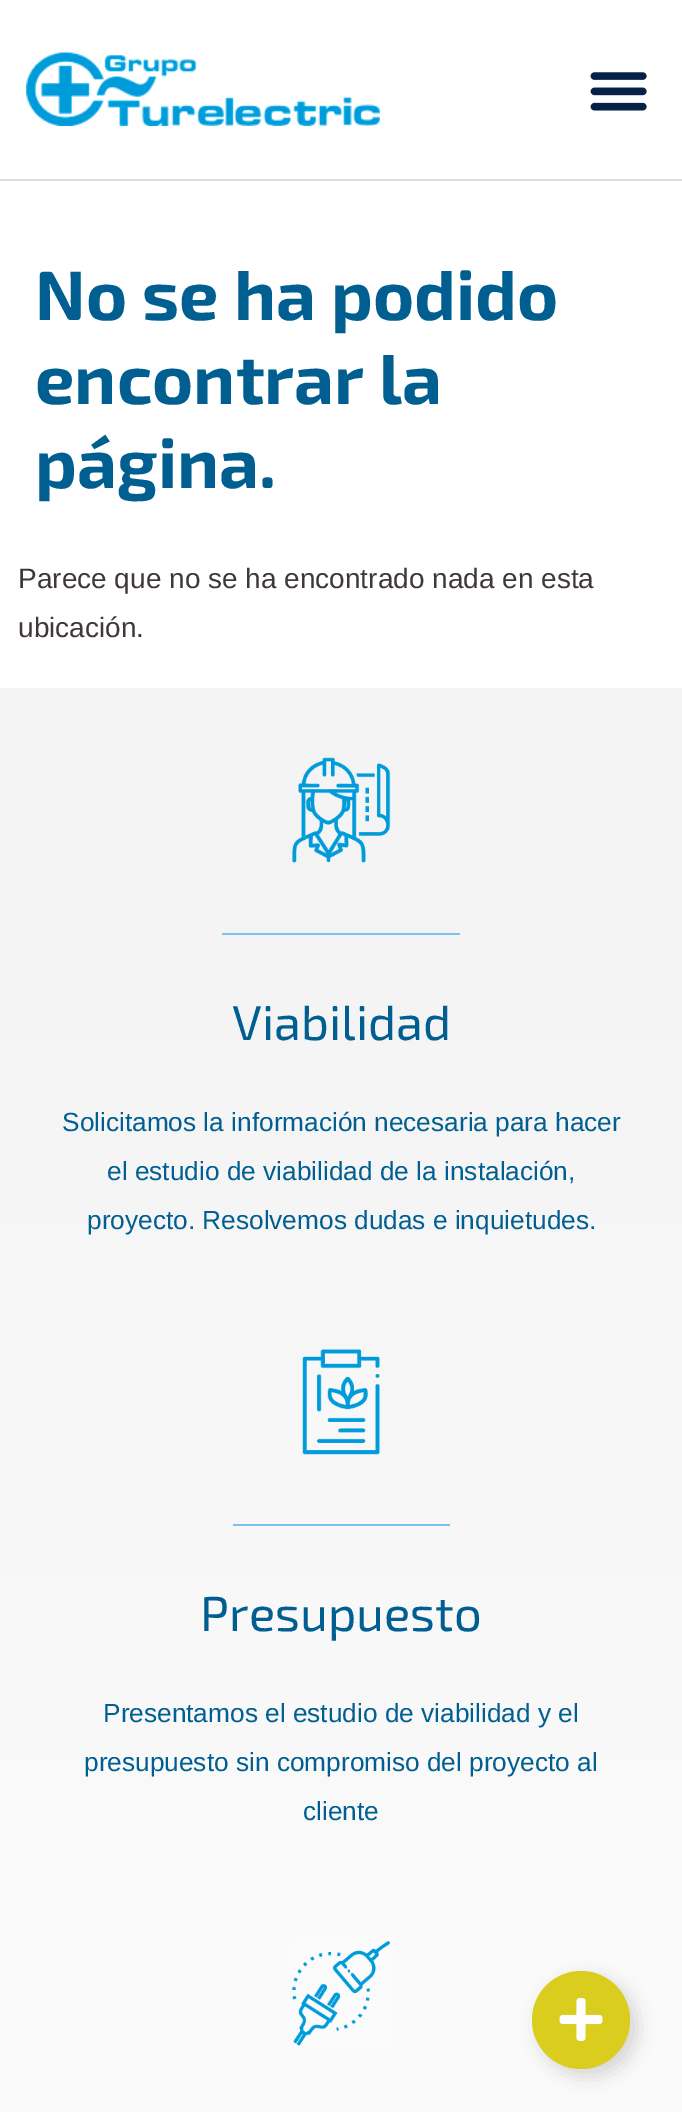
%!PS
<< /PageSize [682 2112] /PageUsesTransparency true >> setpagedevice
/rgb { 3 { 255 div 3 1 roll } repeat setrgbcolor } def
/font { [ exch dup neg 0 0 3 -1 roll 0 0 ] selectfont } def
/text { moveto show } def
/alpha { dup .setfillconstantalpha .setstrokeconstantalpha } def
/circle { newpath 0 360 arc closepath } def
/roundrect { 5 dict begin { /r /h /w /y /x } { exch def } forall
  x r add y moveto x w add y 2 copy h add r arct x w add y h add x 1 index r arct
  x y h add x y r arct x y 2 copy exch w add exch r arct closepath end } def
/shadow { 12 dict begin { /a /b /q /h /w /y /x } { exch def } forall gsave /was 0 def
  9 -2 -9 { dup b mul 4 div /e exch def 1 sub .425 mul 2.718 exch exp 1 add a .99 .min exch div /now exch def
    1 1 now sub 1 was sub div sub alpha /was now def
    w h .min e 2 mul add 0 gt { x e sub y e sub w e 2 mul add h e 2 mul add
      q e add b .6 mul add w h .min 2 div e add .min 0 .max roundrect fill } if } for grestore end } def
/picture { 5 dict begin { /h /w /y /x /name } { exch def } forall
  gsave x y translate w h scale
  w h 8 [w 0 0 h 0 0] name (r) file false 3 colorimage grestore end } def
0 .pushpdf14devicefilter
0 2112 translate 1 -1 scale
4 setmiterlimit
255 255 255 rgb
0 0 682 2112 rectfill
220 224 229 rgb
0 179 682 2 rectfill
(img_01.rgb) 26 52 354 74 picture
(img_02.rgb) 590 72 57 39 picture
gsave 0 688 moveto 682 0 rlineto 0 1424 rlineto -682 0 rlineto closepath clip newpath
<< /ShadingType 2 /ColorSpace /DeviceRGB /Coords [341 688 341 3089] /Extend [true true] /Function << /FunctionType 3 /Domain [0 1] /Functions [<< /FunctionType 2 /Domain [0 1] /C0 [0.953 0.953 0.953] /C1 [1 1 1] /N 1 >> << /FunctionType 2 /Domain [0 1] /C0 [1 1 1] /C1 [1 1 1] /N 1 >>] /Bounds [0.85] /Encode [0 1 0 1] >> >> shfill grestore
120 196 236 rgb
222 933 238 2 rectfill
(img_03.rgb) 292 757 99 106 picture
233 1524 217 2 rectfill
(img_04.rgb) 302 1349 78 106 picture
(img_05.rgb) 292 1940 99 106 picture
gsave
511 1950 moveto 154 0 rlineto 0 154 rlineto -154 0 rlineto closepath 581 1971 moveto 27 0 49 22 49 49 rcurveto 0 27 -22 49 -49 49 rcurveto -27 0 -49 -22 -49 -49 rcurveto 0 -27 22 -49 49 -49 rcurveto closepath eoclip newpath
0 0 0 rgb
539 1978 98 98 49 9 0.15 shadow
grestore
0.98 alpha
218 204 25 rgb
581 2020 49 circle fill
1 alpha
(img_06.rgb) 559 1998 44 43 picture
/Exo2-Bold 70 font
0 94 145 rgb
(No se ha podido) 35 320 text
(encontrar la) 35 404 text
(página.) 35 488 text
/LiberationSans-Regular 28 font
63 56 56 rgb
(Parece que no se ha encontrado nada en esta) 18 588 text
(ubicación.) 18 637 text
/Exo2-Regular 49 font
0 94 145 rgb
(Viabilidad) 232 1040 text
/LiberationSans-Regular 26.25 font
(Solicitamos la información necesaria para hacer) 62 1131 text
(el estudio de viabilidad de la instalación,) 107 1180 text
(proyecto. Resolvemos dudas e inquietudes.) 87 1229 text
/Exo2-Regular 49 font
(Presupuesto) 200 1631 text
/LiberationSans-Regular 26.25 font
(Presentamos el estudio de viabilidad y el) 103 1722 text
(presupuesto sin compromiso del proyecto al) 84 1771 text
(cliente) 303 1820 text
.poppdf14devicefilter showpage
